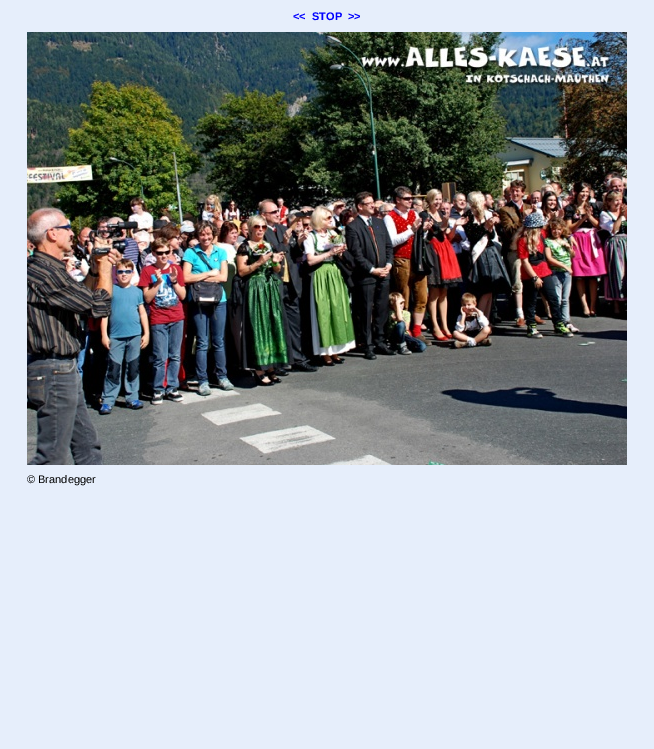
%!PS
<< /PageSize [654 749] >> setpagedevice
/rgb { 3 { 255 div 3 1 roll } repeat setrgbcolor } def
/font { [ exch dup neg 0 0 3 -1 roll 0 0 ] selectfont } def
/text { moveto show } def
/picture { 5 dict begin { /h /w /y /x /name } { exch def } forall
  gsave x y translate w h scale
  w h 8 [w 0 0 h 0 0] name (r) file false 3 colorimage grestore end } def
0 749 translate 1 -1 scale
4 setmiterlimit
230 238 251 rgb
0 0 654 749 rectfill
(img_01.rgb) 27 32 600 433 picture
/LiberationSans-Bold 11 font
0 0 255 rgb
(<<) 293 20 text
(STOP) 312 20 text
(>>) 348 20 text
/LiberationSans-Regular 11 font
0 0 0 rgb
(© Brandegger) 27 483 text
showpage
